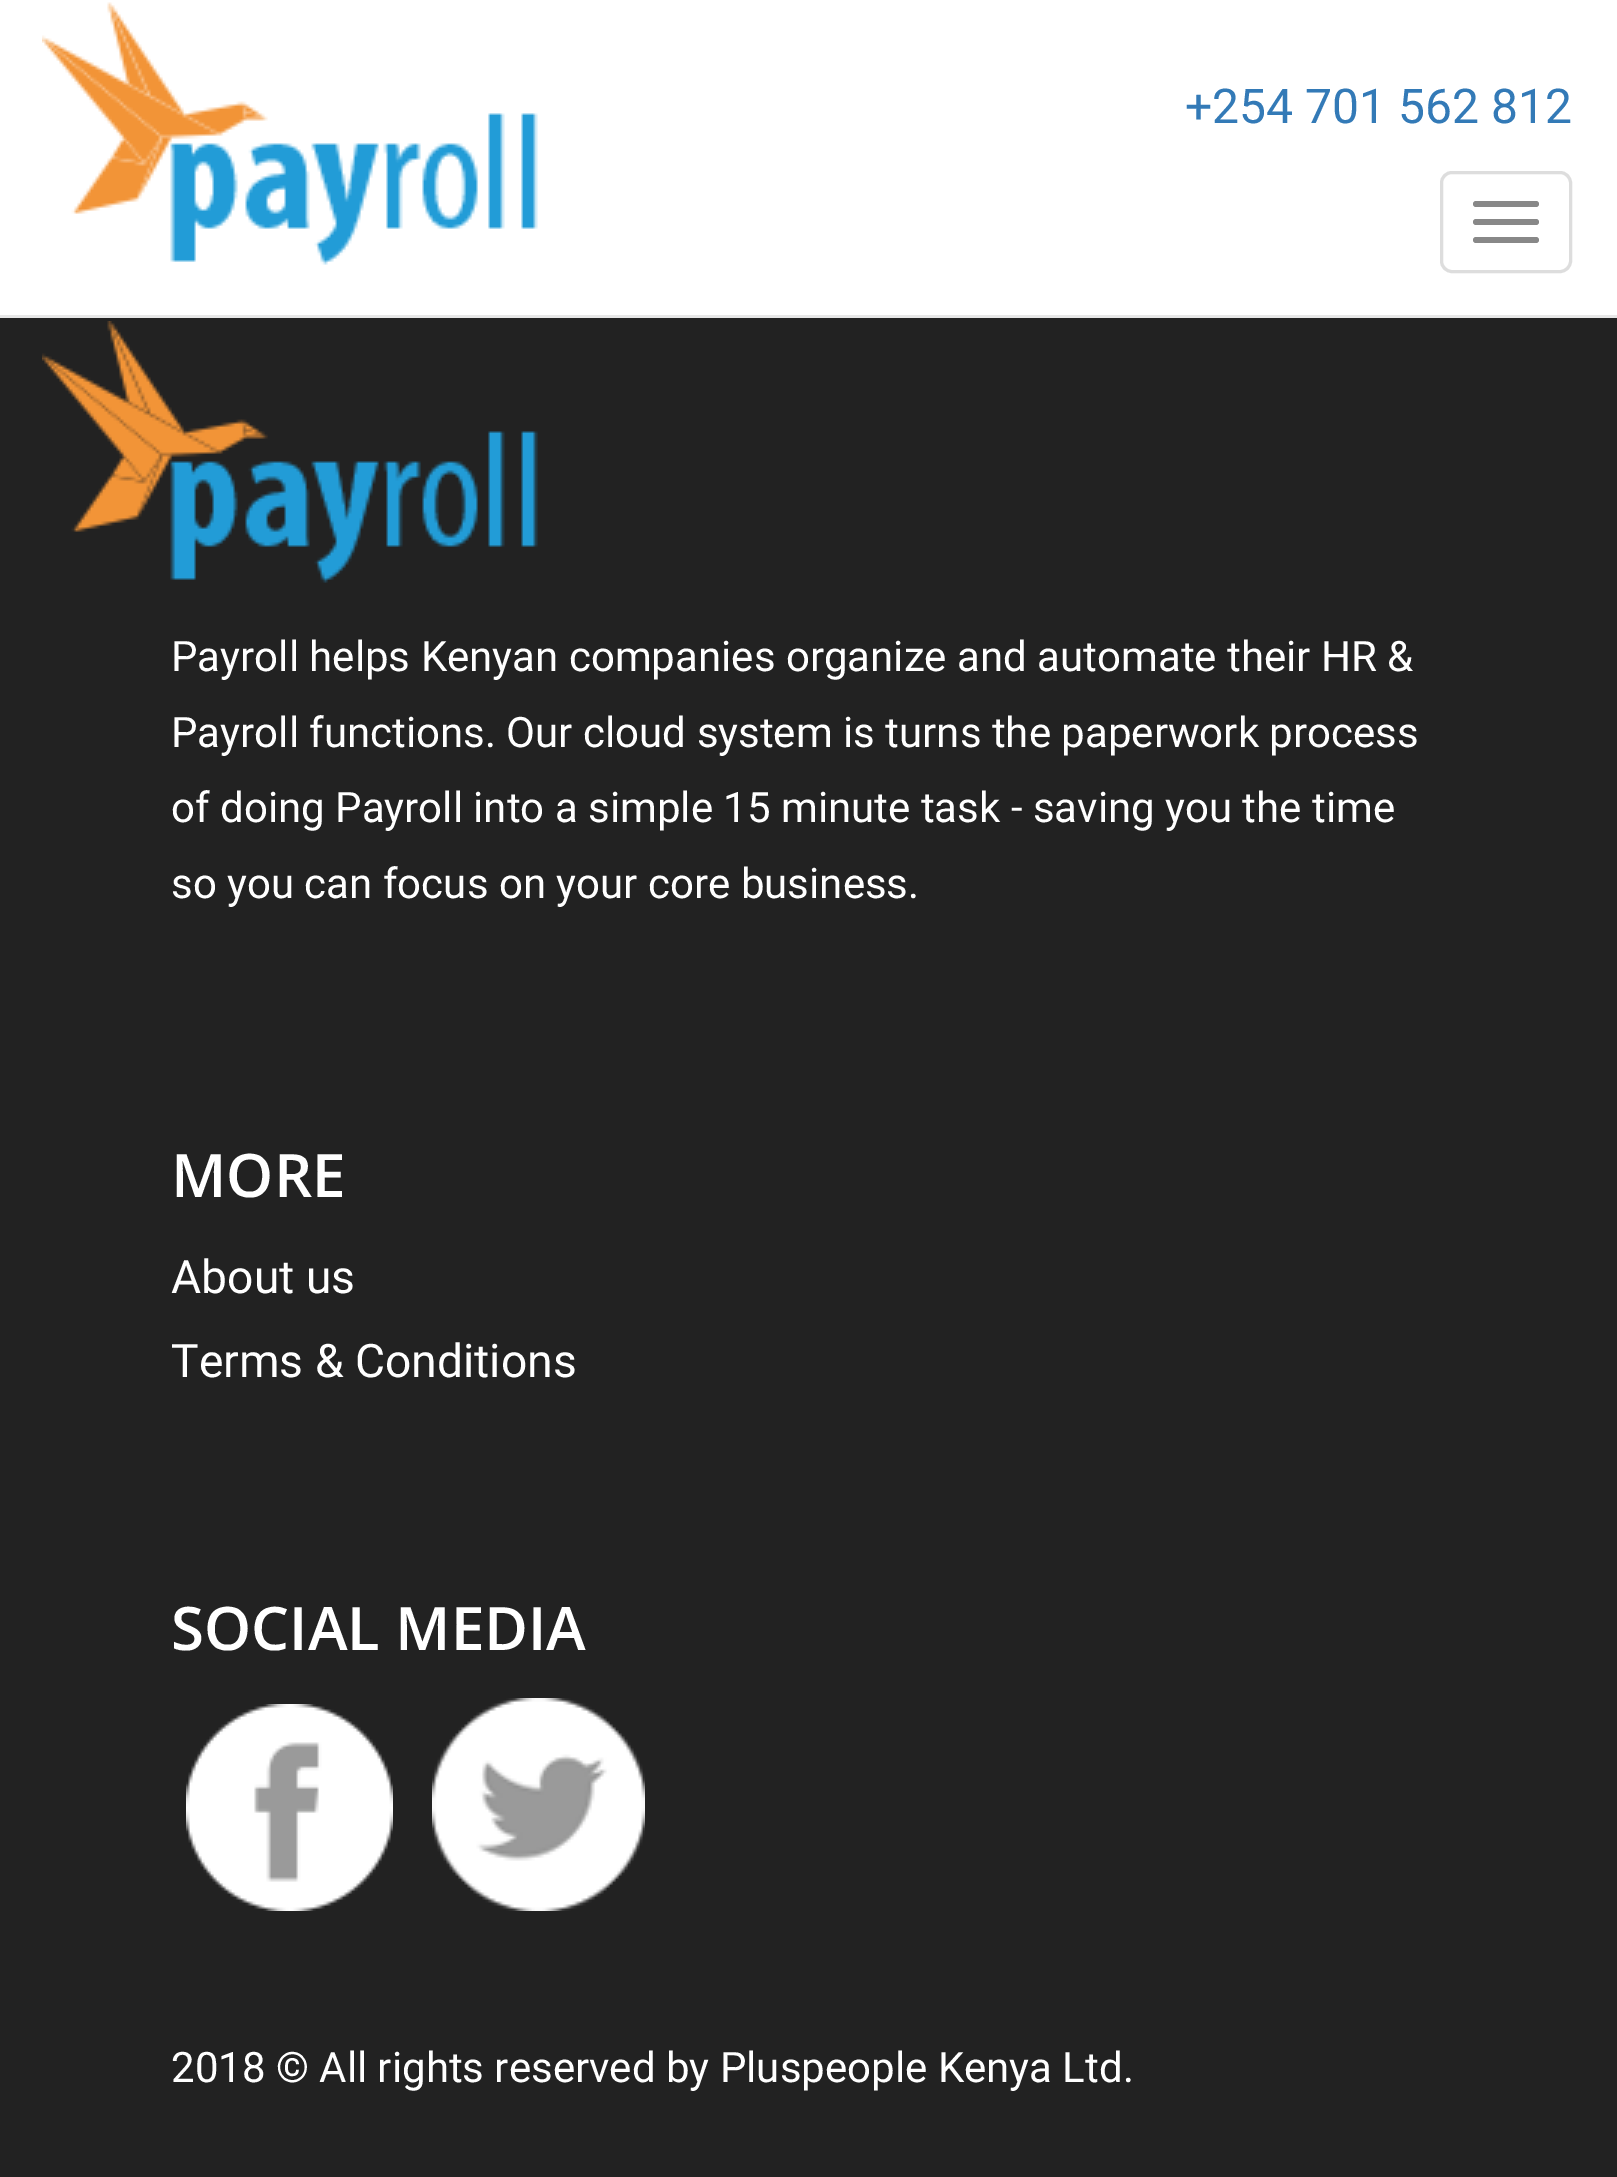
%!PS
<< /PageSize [1617 2177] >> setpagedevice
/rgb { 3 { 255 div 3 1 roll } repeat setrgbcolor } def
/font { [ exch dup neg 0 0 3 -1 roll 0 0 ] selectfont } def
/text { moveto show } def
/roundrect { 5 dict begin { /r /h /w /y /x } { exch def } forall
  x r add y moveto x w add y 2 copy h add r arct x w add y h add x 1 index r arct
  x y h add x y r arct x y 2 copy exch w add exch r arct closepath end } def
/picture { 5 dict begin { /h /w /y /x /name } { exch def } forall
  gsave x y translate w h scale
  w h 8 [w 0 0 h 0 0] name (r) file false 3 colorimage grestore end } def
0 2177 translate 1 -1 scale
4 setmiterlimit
34 34 34 rgb
0 0 1617 2177 rectfill
255 255 255 rgb
0 0 1617 315 rectfill
231 231 231 rgb
0 315 1617 3 rectfill
(img_01.rgb) 42 2 496 263 picture
221 221 221 rgb
3 setlinewidth
1441.5 172.5 129 99 10.5 roundrect stroke
136 136 136 rgb
1473 201 66 6 3 roundrect fill
1473 219 66 6 3 roundrect fill
1473 237 66 6 3 roundrect fill
(img_02.rgb) 42 321 496 262 picture
(img_03.rgb) 186 1704 207 207 picture
(img_04.rgb) 432 1698 213 213 picture
/Roboto-Regular 48 font
51 122 183 rgb
(+254 701 562 812) 1185 123 text
/Roboto-Regular 42 font
255 255 255 rgb
(Payroll helps Kenyan companies organize and automate their HR &) 171 671 text
(Payroll functions. Our cloud system is turns the paperwork process) 171 747 text
(of doing Payroll into a simple 15 minute task - saving you the time) 171 822 text
(so you can focus on your core business.) 171 898 text
/OpenSans-SemiBold 60 font
(MORE) 171 1197 text
/Roboto-Regular 46.25 font
(About us) 171 1293 text
(Terms & Conditions) 171 1377 text
/OpenSans-SemiBold 60 font
(SOCIAL MEDIA) 171 1650 text
/Roboto-Regular 42 font
(2018 © All rights reserved by Pluspeople Kenya Ltd.) 171 2082 text
showpage
